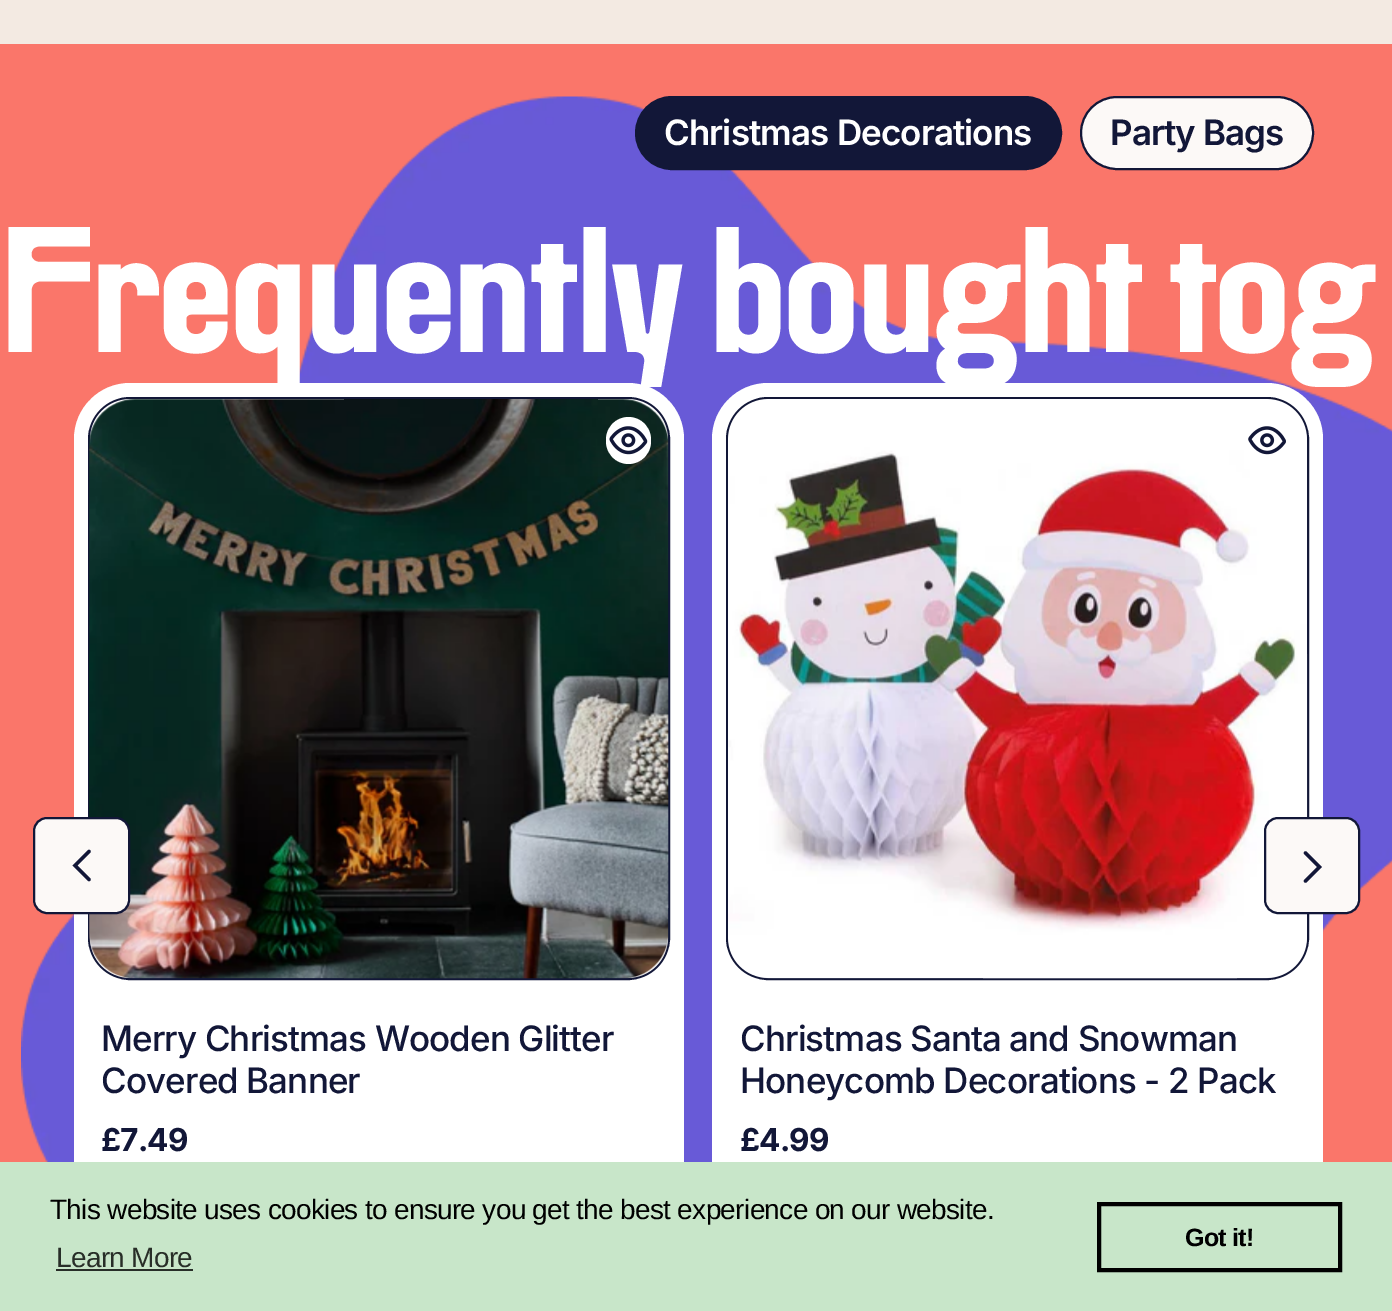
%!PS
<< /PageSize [1392 1311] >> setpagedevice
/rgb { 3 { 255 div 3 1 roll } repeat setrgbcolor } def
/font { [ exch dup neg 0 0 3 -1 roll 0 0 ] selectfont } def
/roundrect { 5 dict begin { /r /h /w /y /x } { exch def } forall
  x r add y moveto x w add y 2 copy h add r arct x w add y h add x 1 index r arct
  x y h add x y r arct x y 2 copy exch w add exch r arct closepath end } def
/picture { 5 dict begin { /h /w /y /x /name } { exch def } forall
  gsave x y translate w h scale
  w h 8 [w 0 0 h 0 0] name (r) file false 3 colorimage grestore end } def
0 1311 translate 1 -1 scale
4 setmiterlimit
243 234 226 rgb
0 0 1392 1311 rectfill
250 118 106 rgb
0 44 1392 1118 rectfill
(img_01.rgb) 21 96 1371 1066 picture
18 23 56 rgb
636 97 425 72 36 roundrect gsave fill grestore
2 setlinewidth
stroke
252 249 247 rgb
1081 97 232 72 36 roundrect gsave fill grestore
18 23 56 rgb
stroke
255 255 255 rgb
74 383 610 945 56 roundrect fill
18 23 56 rgb
89 398 580 581 41 roundrect stroke
(img_02.rgb) 89 399 580 580 picture
252 249 247 rgb
34 818 95 95 13 roundrect gsave fill grestore
18 23 56 rgb
stroke
3.5 setlinewidth
1 setlinecap
89 851.5 moveto -14 14 rlineto 14 14 rlineto stroke
255 255 255 rgb
712 383 611 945 56 roundrect fill
18 23 56 rgb
2 setlinewidth
0 setlinecap
727 398 581 581 41 roundrect stroke
(img_04.rgb) 728 399 580 580 picture
252 249 247 rgb
1265 818 94 95 13 roundrect gsave fill grestore
18 23 56 rgb
stroke
3.5 setlinewidth
1 setlinecap
1305.5 881 moveto 14 -14 rlineto -14 -14 rlineto stroke
255 255 255 rgb
606 417 45 47 22.5 roundrect fill
(img_03.rgb) 609 426 39 29 picture
(img_05.rgb) 1248 426 38 29 picture
200 230 201 rgb
0 1162 1392 149 rectfill
40 46 40 rgb
56 1269 137 2 rectfill
0 0 0 rgb
4 setlinewidth
0 setlinecap
1099 1204 241 66 rectstroke
/Inter-SemiBold 35 font
255 255 255 rgb
664 145 moveto -0.9 0 (Christmas Decorations) ashow
18 23 56 rgb
1110 145 moveto -0.9 0 (Party Bags) ashow
/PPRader-Bold 175 font
255 255 255 rgb
0 352 moveto -0.9 0 (Frequently bought tog) ashow
/Inter-Medium 35 font
18 23 56 rgb
101 1051 moveto -0.9 0 (Merry Christmas Wooden Glitter) ashow
101 1093 moveto -0.9 0 (Covered Banner) ashow
/Inter-Bold 31.5 font
101 1151 moveto -0.9 0 (£7.49) ashow
/Inter-Medium 35 font
740 1051 moveto -0.9 0 (Christmas Santa and Snowman) ashow
740 1093 moveto -0.9 0 (Honeycomb Decorations - 2 Pack) ashow
/Inter-Bold 31.5 font
740 1151 moveto -0.9 0 (£4.99) ashow
/LiberationSans-Regular 28 font
0 0 0 rgb
50 1219 moveto -0.7 0 (This website uses cookies to ensure you get the best experience on our website.) ashow
40 46 40 rgb
56 1267 moveto -0.7 0 (Learn More) ashow
/LiberationSans-Bold 25 font
0 0 0 rgb
1185 1246 moveto -0.7 0 (Got it!) ashow
showpage
